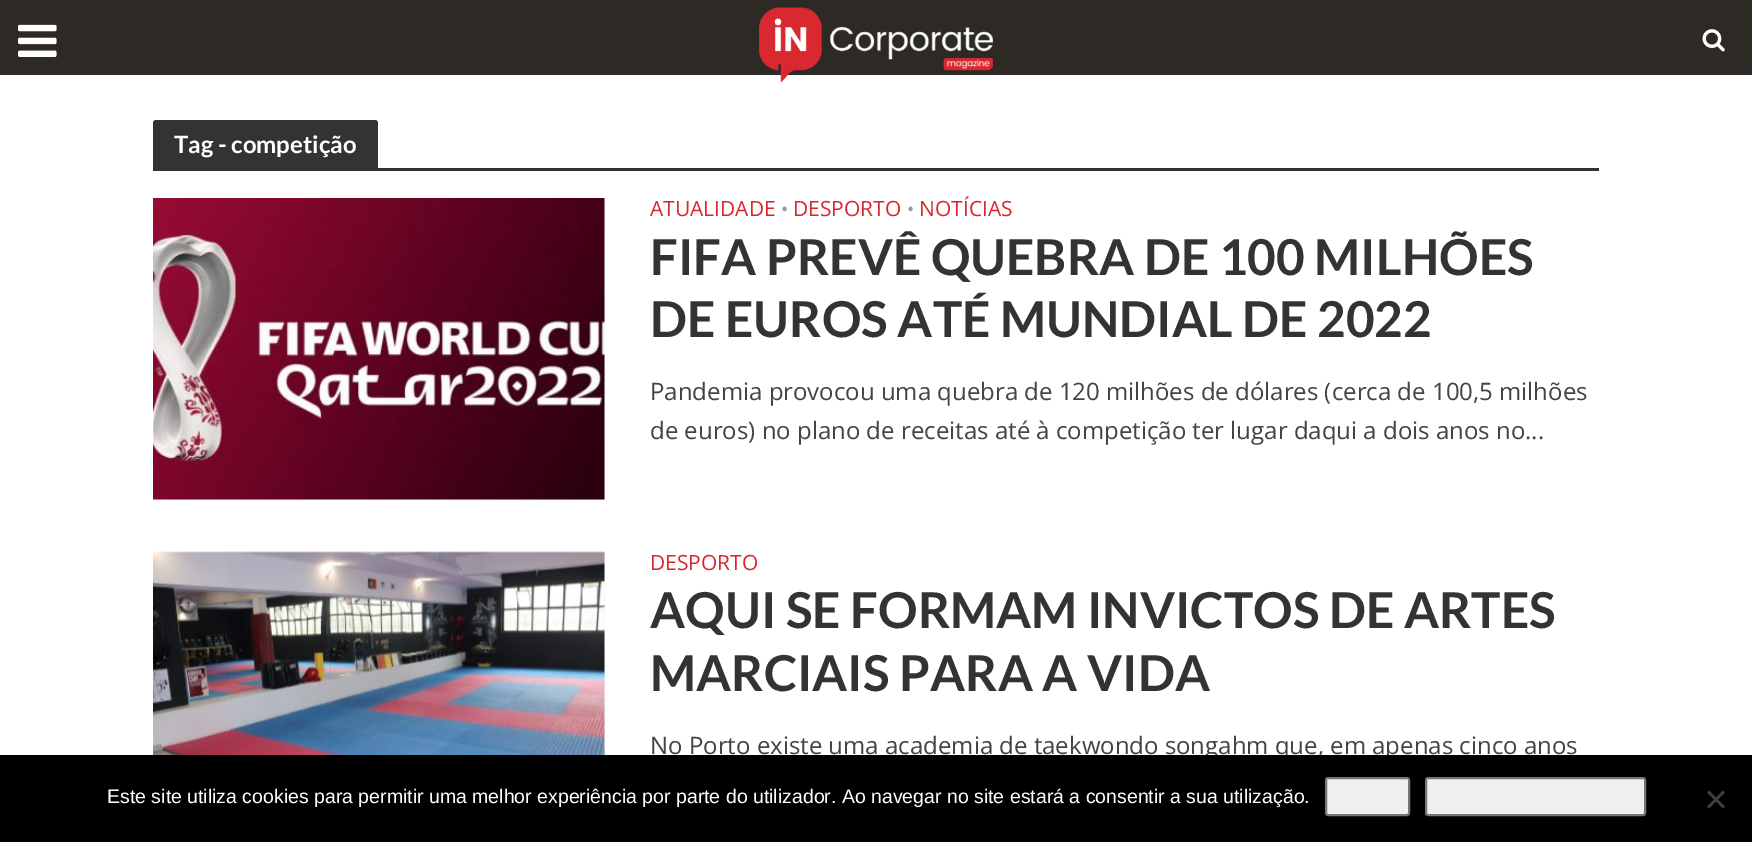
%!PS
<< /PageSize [1752 842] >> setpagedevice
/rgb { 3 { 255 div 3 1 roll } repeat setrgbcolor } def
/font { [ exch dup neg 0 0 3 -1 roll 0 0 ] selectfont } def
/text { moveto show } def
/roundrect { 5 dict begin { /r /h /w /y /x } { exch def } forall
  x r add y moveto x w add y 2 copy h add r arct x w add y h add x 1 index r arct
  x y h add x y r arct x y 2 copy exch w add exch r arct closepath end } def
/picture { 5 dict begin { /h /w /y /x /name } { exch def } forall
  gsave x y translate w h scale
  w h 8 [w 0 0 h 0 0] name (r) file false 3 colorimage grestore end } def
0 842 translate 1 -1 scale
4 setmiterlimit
255 255 255 rgb
0 0 1752 842 rectfill
45 42 38 rgb
0 0 1752 75 rectfill
(img_01.rgb) 18 24 39 33 picture
(img_02.rgb) 759 7 234 76 picture
(img_03.rgb) 1702 29 23 23 picture
51 51 51 rgb
156 120 moveto 219 0 rlineto 1.5 0 3 1.5 3 3 rcurveto 0 45 rlineto -225 0 rlineto 0 -45 rlineto 0 -1.5 1.5 -3 3 -3 rcurveto closepath fill
153 168 1446 3 rectfill
243 243 243 rgb
153 198 452 302 rectfill
(img_04.rgb) 153 198 452 302 picture
153 552 452 203 rectfill
(img_05.rgb) 153 551 452 204 picture
/Lato-Bold 24 font
255 255 255 rgb
(Tag - competição) 174 153 text
/OpenSans-Regular 21 font
215 40 47 rgb
(ATUALIDADE) 650 216 text
/OpenSans-Regular 19.5 font
153 153 153 rgb
(•) 781 216 text
/OpenSans-Regular 21 font
215 40 47 rgb
(DESPORTO) 793 216 text
/OpenSans-Regular 19.5 font
153 153 153 rgb
(•) 907 216 text
/OpenSans-Regular 21 font
215 40 47 rgb
(NOTÍCIAS) 919 216 text
/Lato-Bold 49.5 font
51 51 51 rgb
(FIFA PREVÊ QUEBRA DE 100 MILHÕES) 650 275 text
(DE EUROS ATÉ MUNDIAL DE 2022) 650 337 text
/OpenSans-Regular 24 font
68 68 68 rgb
(Pandemia provocou uma quebra de 120 milhões de dólares \(cerca de 100,5 milhões) 650 400 text
(de euros\) no plano de receitas até à competição ter lugar daqui a dois anos no...) 650 439 text
/OpenSans-Regular 21 font
215 40 47 rgb
(DESPORTO) 650 570 text
/Lato-Bold 49.5 font
51 51 51 rgb
(AQUI SE FORMAM INVICTOS DE ARTES) 650 628 text
(MARCIAIS PARA A VIDA) 650 691 text
/OpenSans-Regular 24 font
68 68 68 rgb
(No Porto existe uma academia de taekwondo songahm que, em apenas cinco anos) 650 754 text
0 0 0 rgb
0 755 1752 87 rectfill
/LiberationSans-Regular 19.5 font
255 255 255 rgb
(Este site utiliza cookies para permitir uma melhor experiência por parte do utilizador. Ao navegar no site estará a consentir a sua utilização.) 107 803 text
239 239 239 rgb
1326 778 83 37 2 roundrect gsave fill grestore
118 118 118 rgb
2 setlinewidth
stroke
239 239 239 rgb
1426 778 219 37 2 roundrect gsave fill grestore
118 118 118 rgb
stroke
64 64 64 rgb
1723 790.5 moveto 2 2 rlineto -16 16 rlineto -2 -2 rlineto closepath fill
1707 792.5 moveto 2 -2 rlineto 16 16 rlineto -2 2 rlineto closepath fill
showpage
